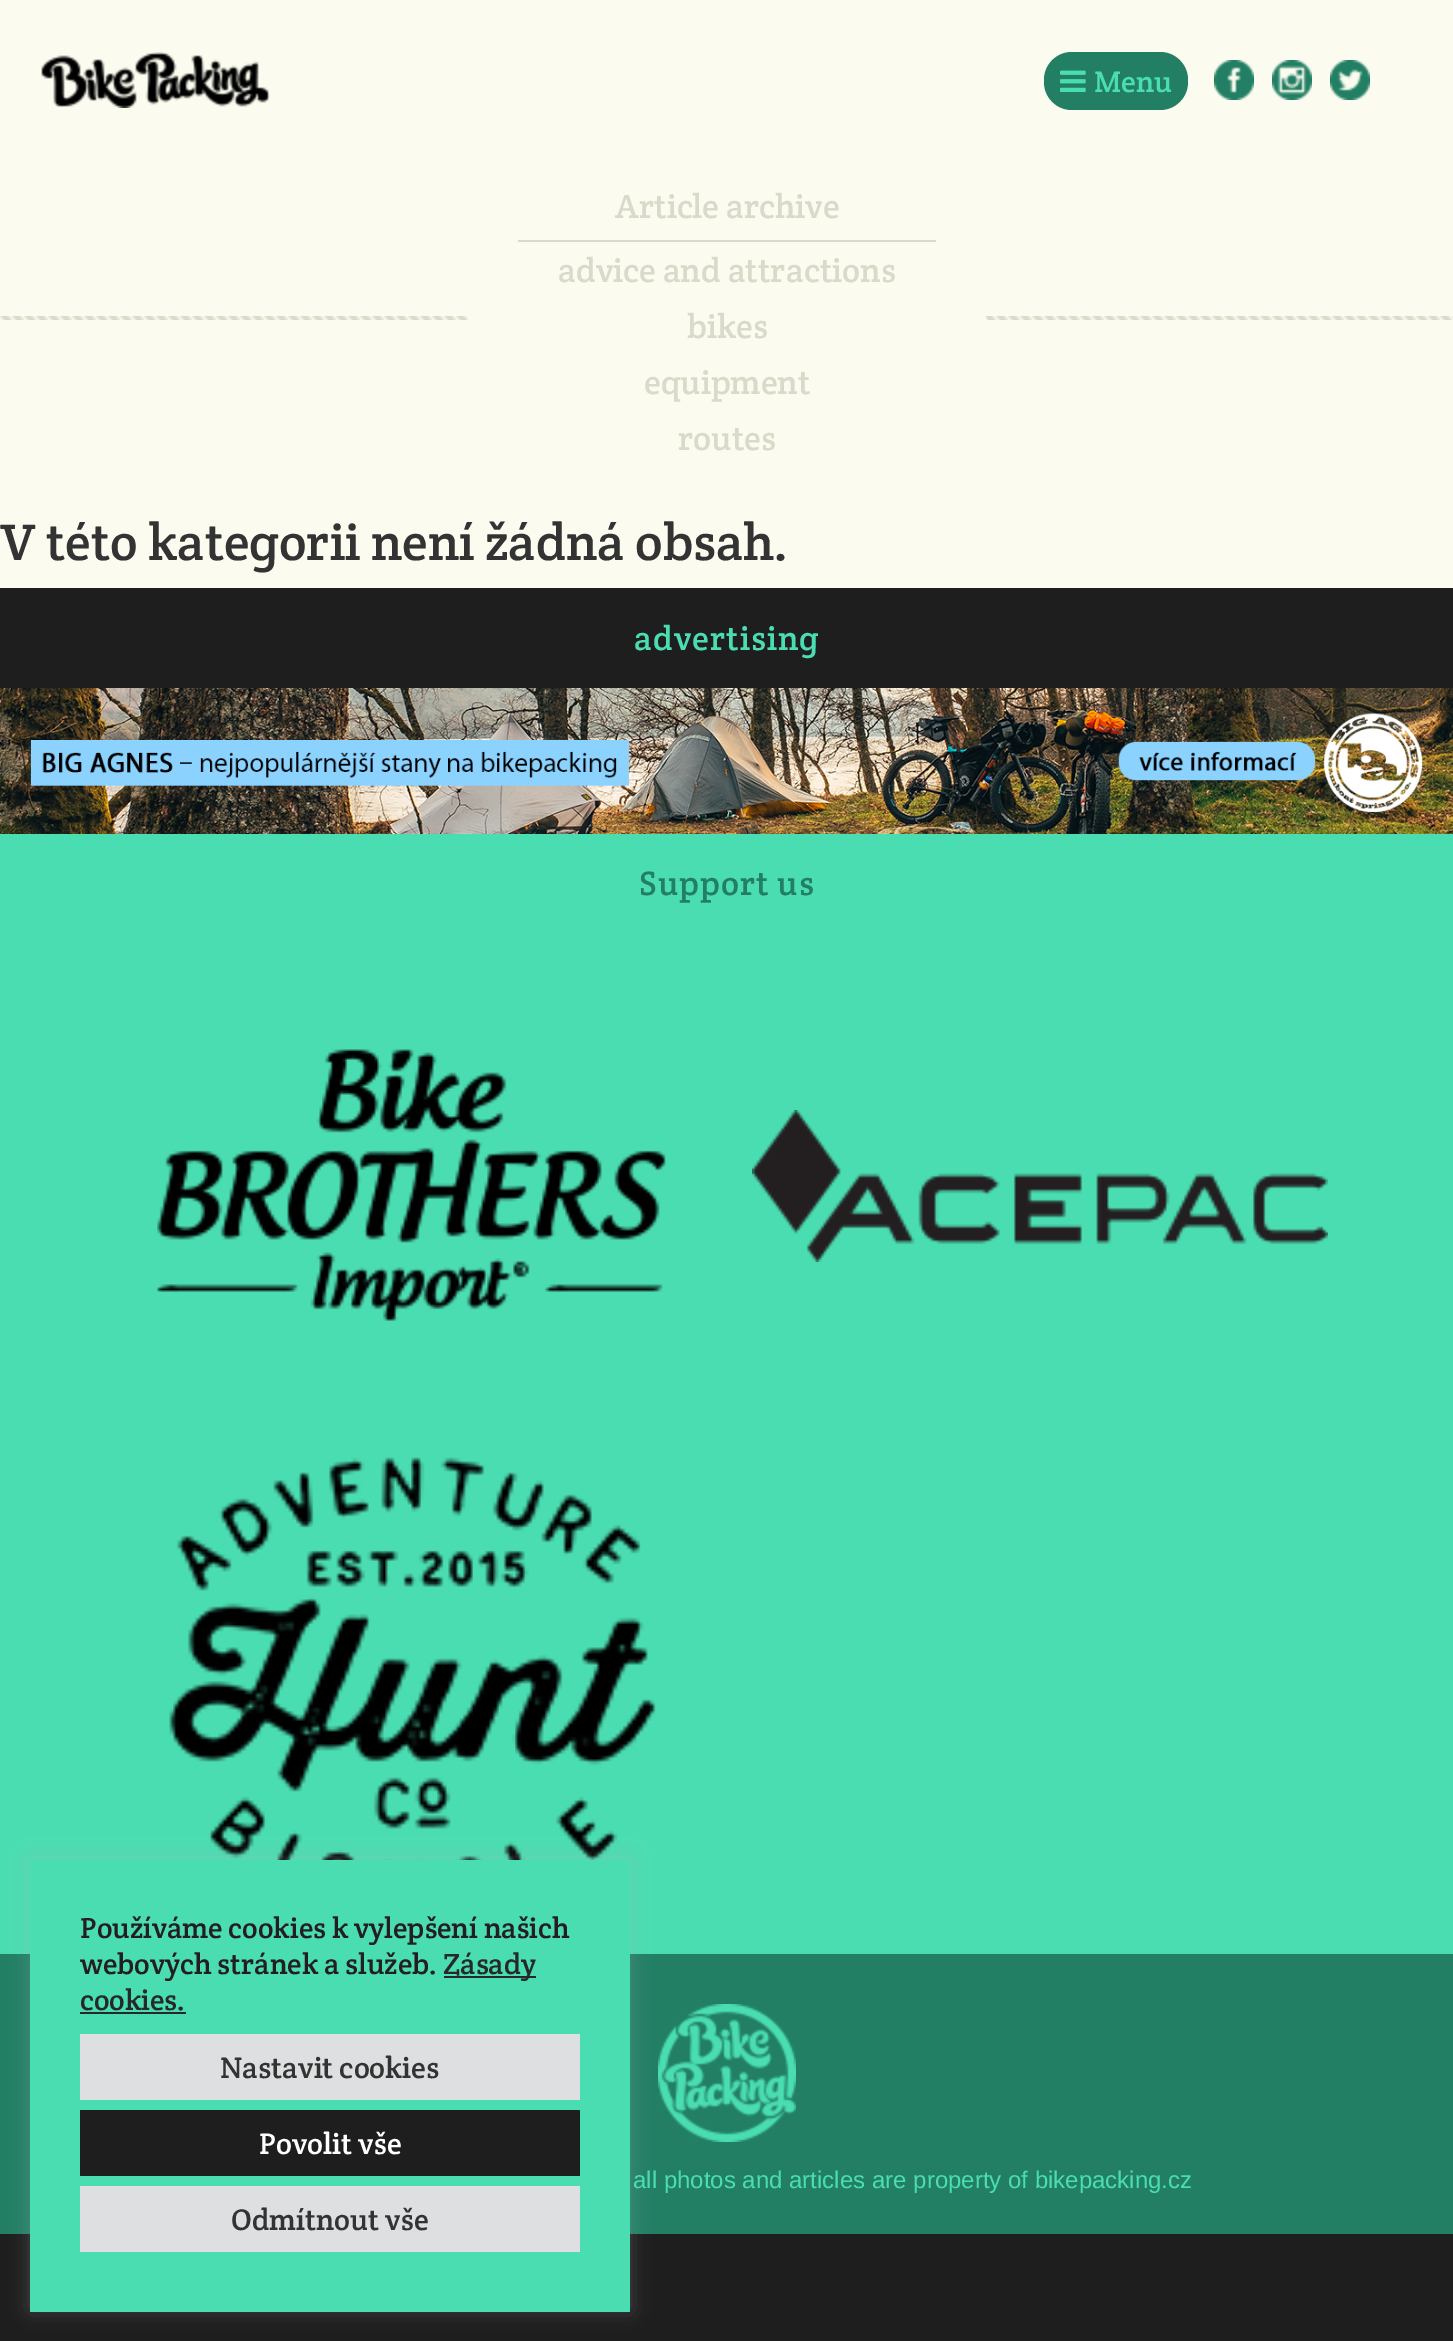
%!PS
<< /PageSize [1453 2341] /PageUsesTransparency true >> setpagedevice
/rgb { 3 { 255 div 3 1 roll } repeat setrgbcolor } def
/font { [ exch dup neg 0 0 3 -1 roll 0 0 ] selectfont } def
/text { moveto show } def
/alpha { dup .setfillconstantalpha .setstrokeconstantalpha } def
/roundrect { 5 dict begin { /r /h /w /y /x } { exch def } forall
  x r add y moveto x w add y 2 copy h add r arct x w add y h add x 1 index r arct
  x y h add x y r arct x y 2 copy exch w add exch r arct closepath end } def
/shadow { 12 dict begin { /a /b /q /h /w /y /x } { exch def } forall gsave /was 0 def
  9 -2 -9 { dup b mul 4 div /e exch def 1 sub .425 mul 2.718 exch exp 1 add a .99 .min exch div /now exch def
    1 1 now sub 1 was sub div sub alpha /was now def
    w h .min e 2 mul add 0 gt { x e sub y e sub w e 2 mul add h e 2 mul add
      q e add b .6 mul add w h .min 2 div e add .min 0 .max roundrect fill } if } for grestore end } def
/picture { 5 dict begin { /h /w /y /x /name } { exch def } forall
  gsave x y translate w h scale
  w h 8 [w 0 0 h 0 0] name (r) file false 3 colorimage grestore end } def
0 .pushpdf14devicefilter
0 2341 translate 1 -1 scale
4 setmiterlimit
30 30 30 rgb
0 0 1453 2341 rectfill
251 251 239 rgb
0 0 1453 588 rectfill
(img_01.rgb) 41 52 229 56 picture
34 127 100 rgb
1044 52 144 58 28 roundrect fill
(img_02.rgb) 1060 70 26 22 picture
(img_03.rgb) 1214 60 40 40 picture
(img_04.rgb) 1272 60 40 40 picture
(img_05.rgb) 1330 60 40 40 picture
(img_06.rgb) 0 316 1453 4 picture
251 251 239 rgb
468 316 518 4 rectfill
218 218 202 rgb
518 240 418 2 rectfill
75 221 178 rgb
0 834 1453 1120 rectfill
(img_10.rgb) 169 1457 487 403 picture
34 127 100 rgb
0 1954 1453 280 rectfill
(img_11.rgb) 658 2004 138 138 picture
172 171 171 rgb
30 1858 600 452 0 10 0.3 shadow
75 221 178 rgb
30 1860 600 452 rectfill
37 41 39 rgb
444 1976 92 2 rectfill
80 2012 106 2 rectfill
222 223 224 rgb
80 2034 500 66 rectfill
30 30 30 rgb
80 2110 500 66 rectfill
222 223 224 rgb
80 2186 500 66 rectfill
(img_07.rgb) 0 688 1453 146 picture
(img_08.rgb) 157 1049 509 272 picture
(img_09.rgb) 752 1110 576 152 picture
/CreteRound-Regular 30 font
75 221 178 rgb
(Menu) 1094 92 text
/CreteRound-Regular 34 font
218 218 202 rgb
(Article archive) 615 218 text
(advice and attractions) 558 282 text
(bikes) 687 338 text
(equipment) 644 394 text
(routes) 678 450 text
/CreteRound-Regular 52 font
51 51 51 rgb
(V této kategorii není žádná obsah.) 0 560 text
/CreteRound-Regular 29.3 font
35 31 32 rgb
(Používáme cookies k vylepšení našich) 80 1938 text
(webových stránek a služeb.) 80 1974 text
37 41 39 rgb
(Zásady) 443 1974 text
(cookies.) 80 2010 text
/CreteRound-Regular 30 font
51 51 51 rgb
(Nastavit cookies) 220 2078 text
255 255 255 rgb
(Povolit vše) 259 2154 text
51 51 51 rgb
(Odmítnout vše) 231 2230 text
/CreteRound-Regular 34 font
75 221 178 rgb
634 650 moveto 1 0 (advertising) ashow
34 127 100 rgb
639 895 moveto 1 0 (Support us) ashow
/LiberationSans-Regular 24 font
75 221 178 rgb
(all photos and articles are property of bikepacking.cz) 633 2188 text
.poppdf14devicefilter showpage
